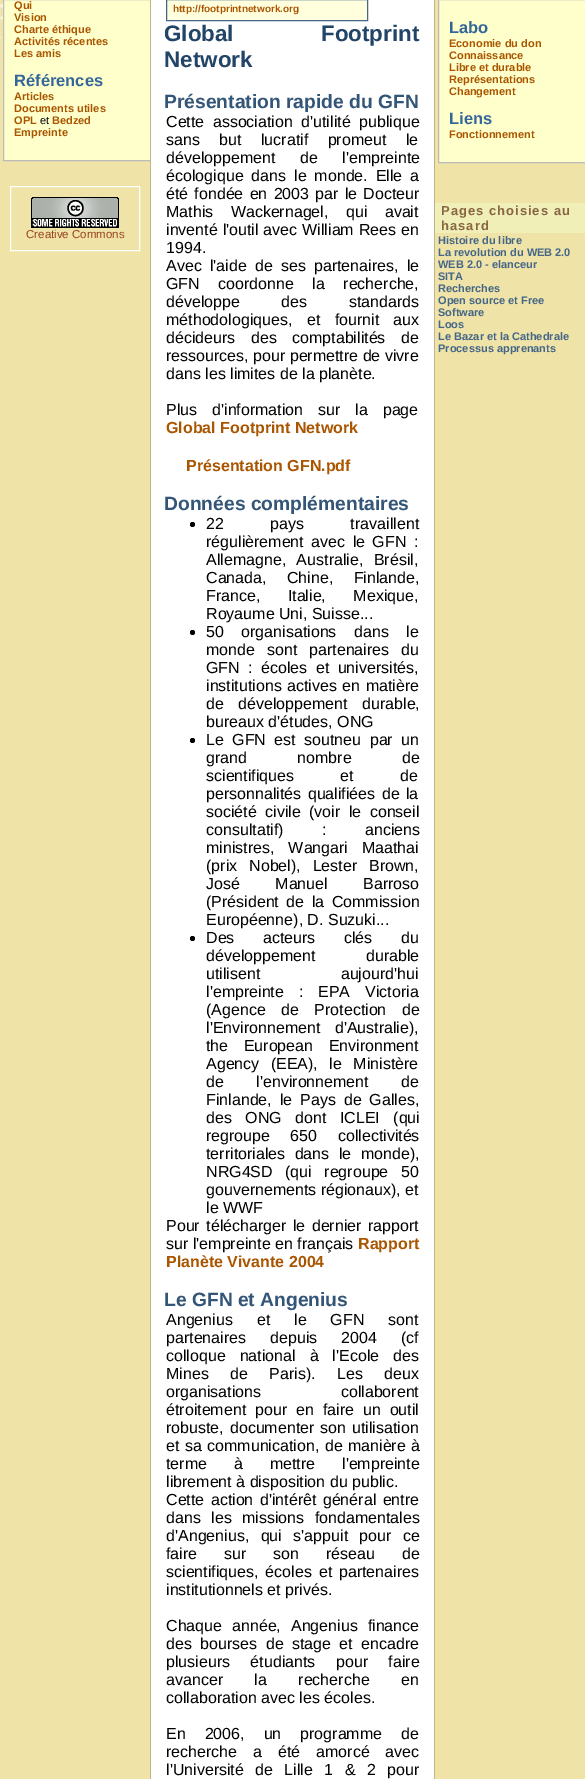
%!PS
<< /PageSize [585 1779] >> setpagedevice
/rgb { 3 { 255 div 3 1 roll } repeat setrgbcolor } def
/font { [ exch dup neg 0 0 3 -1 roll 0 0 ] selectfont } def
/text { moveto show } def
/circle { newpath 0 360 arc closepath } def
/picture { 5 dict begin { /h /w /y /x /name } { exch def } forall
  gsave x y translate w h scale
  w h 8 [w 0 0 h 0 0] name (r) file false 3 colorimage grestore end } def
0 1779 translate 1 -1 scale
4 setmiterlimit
239 227 167 rgb
0 0 585 1779 rectfill
(img_01.rgb) 0 0 3 102 picture
255 255 204 rgb
4 0 146 160 rectfill
187 187 187 rgb
3.5 -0.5 149 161 rectstroke
255 255 255 rgb
10.5 186.5 129 64 rectstroke
(img_02.rgb) 31 197 88 31 picture
151 0 283 1779 rectfill
191 179 135 rgb
434 0 1 1779 rectfill
150 0 1 1779 rectfill
255 255 221 rgb
166.5 -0.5 moveto 201 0 rlineto 0 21 rlineto -201 0 rlineto closepath gsave fill grestore
68 102 136 rgb
stroke
0 0 0 rgb
192.5 524.5 2.5 circle fill
192.5 632.5 2.5 circle fill
192.5 740.5 2.5 circle fill
192.5 938.5 2.5 circle fill
255 255 204 rgb
438.5 -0.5 moveto 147 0 rlineto 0 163 rlineto -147 0 rlineto closepath gsave fill grestore
187 187 187 rgb
stroke
239 239 183 rgb
435 203 150 30 rectfill
/LiberationSans-Bold 11 font
170 85 0 rgb
(Qui) 14 9 text
(Vision) 14 21 text
(Charte éthique) 14 33 text
(Activités récentes) 14 45 text
(Les amis) 14 57 text
/LiberationSans-Bold 16.5 font
51 102 153 rgb
(Références) 14 86 text
/LiberationSans-Bold 11 font
170 85 0 rgb
(Articles) 14 100 text
(Documents utiles) 14 112 text
(OPL) 14 124 text
/LiberationSans-Regular 11 font
0 0 0 rgb
(et) 40 124 text
/LiberationSans-Bold 11 font
170 85 0 rgb
(Bedzed) 52 124 text
(Empreinte) 14 136 text
/LiberationSans-Regular 11.5 font
153 68 34 rgb
(Creative Commons) 26 238 text
/LiberationSans-Bold 10 font
170 85 0 rgb
(http://footprintnetwork.org) 173 12 text
/LiberationSans-Bold 22.4 font
34 68 102 rgb
164 41 moveto 81 0 32 (Global Footprint) widthshow
(Network) 164 67 text
/LiberationSans-Bold 19.25 font
51 85 119 rgb
(Présentation rapide du GFN) 164 108 text
/LiberationSans-Regular 16 font
0 0 0 rgb
166 127 moveto 4 0 32 (Cette association d'utilité publique) widthshow
166 145 moveto 15 0 32 (sans but lucratif promeut le) widthshow
166 163 moveto 20 0 32 (développement de l'empreinte) widthshow
166 181 moveto 3.5 0 32 (écologique dans le monde. Elle a) widthshow
166 199 moveto 1.75 0 32 (été fondée en 2003 par le Docteur) widthshow
166 217 moveto 13 0 32 (Mathis Wackernagel, qui avait) widthshow
166 235 moveto 0.5 0 32 (inventé l'outil avec William Rees en) widthshow
(1994.) 166 253 text
166 271 moveto 3.75 0 32 (Avec l'aide de ses partenaires, le) widthshow
166 289 moveto 14 0 32 (GFN coordonne la recherche,) widthshow
166 307 moveto 37 0 32 (développe des standards) widthshow
166 325 moveto 10 0 32 (méthodologiques, et fournit aux) widthshow
166 343 moveto 11 0 32 (décideurs des comptabilités de) widthshow
(ressources, pour permettre de vivre) 166 361 text
(dans les limites de la planète.) 166 379 text
166 415 moveto 10.5 0 32 (Plus d'information sur la page) widthshow
/LiberationSans-Bold 16 font
170 85 0 rgb
(Global Footprint Network) 166 433 text
(Présentation GFN.pdf) 186 471 text
/LiberationSans-Bold 19.25 font
51 85 119 rgb
(Données complémentaires) 164 510 text
/LiberationSans-Regular 16 font
0 0 0 rgb
206 529 moveto 42 0 32 (22 pays travaillent) widthshow
206 547 moveto 3 0 32 (régulièrement avec le GFN :) widthshow
206 565 moveto 6 0 32 (Allemagne, Australie, Brésil,) widthshow
206 583 moveto 16 0 32 (Canada, Chine, Finlande,) widthshow
206 601 moveto 23 0 32 (France, Italie, Mexique,) widthshow
(Royaume Uni, Suisse...) 206 619 text
206 637 moveto 13 0 32 (50 organisations dans le) widthshow
206 655 moveto 7.5 0 32 (monde sont partenaires du) widthshow
206 673 moveto 4 0 32 (GFN : écoles et universités,) widthshow
206 691 moveto 1 0 32 (institutions actives en matière) widthshow
206 709 moveto 10 0 32 (de développement durable,) widthshow
(bureaux d'études, ONG) 206 727 text
206 745 moveto 4 0 32 (Le GFN est soutneu par un) widthshow
206 763 moveto 46 0 32 (grand nombre de) widthshow
206 781 moveto 42 0 32 (scientifiques et de) widthshow
206 799 moveto 2 0 32 (personnalités qualifiées de la) widthshow
206 817 moveto 4 0 32 (société civile \(voir le conseil) widthshow
206 835 moveto 34 0 32 (consultatif\) : anciens) widthshow
206 853 moveto 9.5 0 32 (ministres, Wangari Maathai) widthshow
206 871 moveto 7.5 0 32 (\(prix Nobel\), Lester Brown,) widthshow
206 889 moveto 31 0 32 (José Manuel Barroso) widthshow
206 907 moveto 3 0 32 (\(Président de la Commission) widthshow
(Européenne\), D. Suzuki...) 206 925 text
206 943 moveto 24 0 32 (Des acteurs clés du) widthshow
206 961 moveto 46 0 32 (développement durable) widthshow
206 979 moveto 76 0 32 (utilisent aujourd'hui) widthshow
206 997 moveto 10.5 0 32 (l'empreinte : EPA Victoria) widthshow
206 1015 moveto 11 0 32 (\(Agence de Protection de) widthshow
206 1033 moveto 10 0 32 (l'Environnement d'Australie\),) widthshow
206 1051 moveto 11 0 32 (the European Environment) widthshow
206 1069 moveto 7 0 32 (Agency \(EEA\), le Ministère) widthshow
206 1087 moveto 28 0 32 (de l'environnement de) widthshow
206 1105 moveto 3.5 0 32 (Finlande, le Pays de Galles,) widthshow
206 1123 moveto 9 0 32 (des ONG dont ICLEI \(qui) widthshow
206 1141 moveto 16 0 32 (regroupe 650 collectivités) widthshow
206 1159 moveto 5 0 32 (territoriales dans le monde\),) widthshow
206 1177 moveto 8 0 32 (NRG4SD \(qui regroupe 50) widthshow
(gouvernements régionaux\), et) 206 1195 text
(le WWF) 206 1213 text
166 1231 moveto 2 0 32 (Pour télécharger le dernier rapport) widthshow
(sur l'empreinte en français) 166 1249 text
/LiberationSans-Bold 16 font
170 85 0 rgb
(Rapport) 358 1249 text
(Planète Vivante 2004) 166 1267 text
/LiberationSans-Bold 19.25 font
51 85 119 rgb
(Le GFN et Angenius) 164 1306 text
/LiberationSans-Regular 16 font
0 0 0 rgb
166 1325 moveto 19.5 0 32 (Angenius et le GFN sont) widthshow
166 1343 moveto 19.5 0 32 (partenaires depuis 2004 \(cf) widthshow
166 1361 moveto 9.5 0 32 (colloque national à l'Ecole des) widthshow
166 1379 moveto 17 0 32 (Mines de Paris\). Les deux) widthshow
166 1397 moveto 75 0 32 (organisations collaborent) widthshow
166 1415 moveto 4.5 0 32 (étroitement pour en faire un outil) widthshow
166 1433 moveto 1.5 0 32 (robuste, documenter son utilisation) widthshow
166 1451 moveto 1 0 32 (et sa communication, de manière à) widthshow
166 1469 moveto 22.5 0 32 (terme à mettre l'empreinte) widthshow
(librement à disposition du public.) 166 1487 text
166 1505 moveto 2 0 32 (Cette action d'intérêt général entre) widthshow
166 1523 moveto 6 0 32 (dans les missions fondamentales) widthshow
166 1541 moveto 7 0 32 (d'Angenius, qui s'appuit pour ce) widthshow
166 1559 moveto 22.5 0 32 (faire sur son réseau de) widthshow
166 1577 moveto 2.5 0 32 (scientifiques, écoles et partenaires) widthshow
(institutionnels et privés.) 166 1595 text
166 1631 moveto 5.5 0 32 (Chaque année, Angenius finance) widthshow
166 1649 moveto 4 0 32 (des bourses de stage et encadre) widthshow
166 1667 moveto 16 0 32 (plusieurs étudiants pour faire) widthshow
166 1685 moveto 27 0 32 (avancer la recherche en) widthshow
(collaboration avec les écoles.) 166 1703 text
166 1739 moveto 14.5 0 32 (En 2006, un programme de) widthshow
166 1757 moveto 11.5 0 32 (recherche a été amorcé avec) widthshow
166 1775 moveto 7 0 32 (l'Université de Lille 1 & 2 pour) widthshow
/LiberationSans-Bold 16.5 font
51 102 153 rgb
(Labo) 449 33 text
/LiberationSans-Bold 11 font
170 85 0 rgb
(Economie du don) 449 47 text
(Connaissance) 449 59 text
(Libre et durable) 449 71 text
(Représentations) 449 83 text
(Changement) 449 95 text
/LiberationSans-Bold 16.5 font
51 102 153 rgb
(Liens) 449 124 text
/LiberationSans-Bold 11 font
170 85 0 rgb
(Fonctionnement) 449 138 text
/LiberationSans-Bold 13 font
136 102 68 rgb
441 215 moveto 1 0 (Pages choisies au) ashow
441 230 moveto 1 0 (hasard) ashow
/LiberationSans-Bold 11 font
68 102 136 rgb
(Histoire du libre) 438 244 text
(La revolution du WEB 2.0) 438 256 text
(WEB 2.0 - elanceur) 438 268 text
(SITA) 438 280 text
(Recherches) 438 292 text
(Open source et Free) 438 304 text
(Software) 438 316 text
(Loos) 438 328 text
(Le Bazar et la Cathedrale) 438 340 text
(Processus apprenants) 438 352 text
showpage
